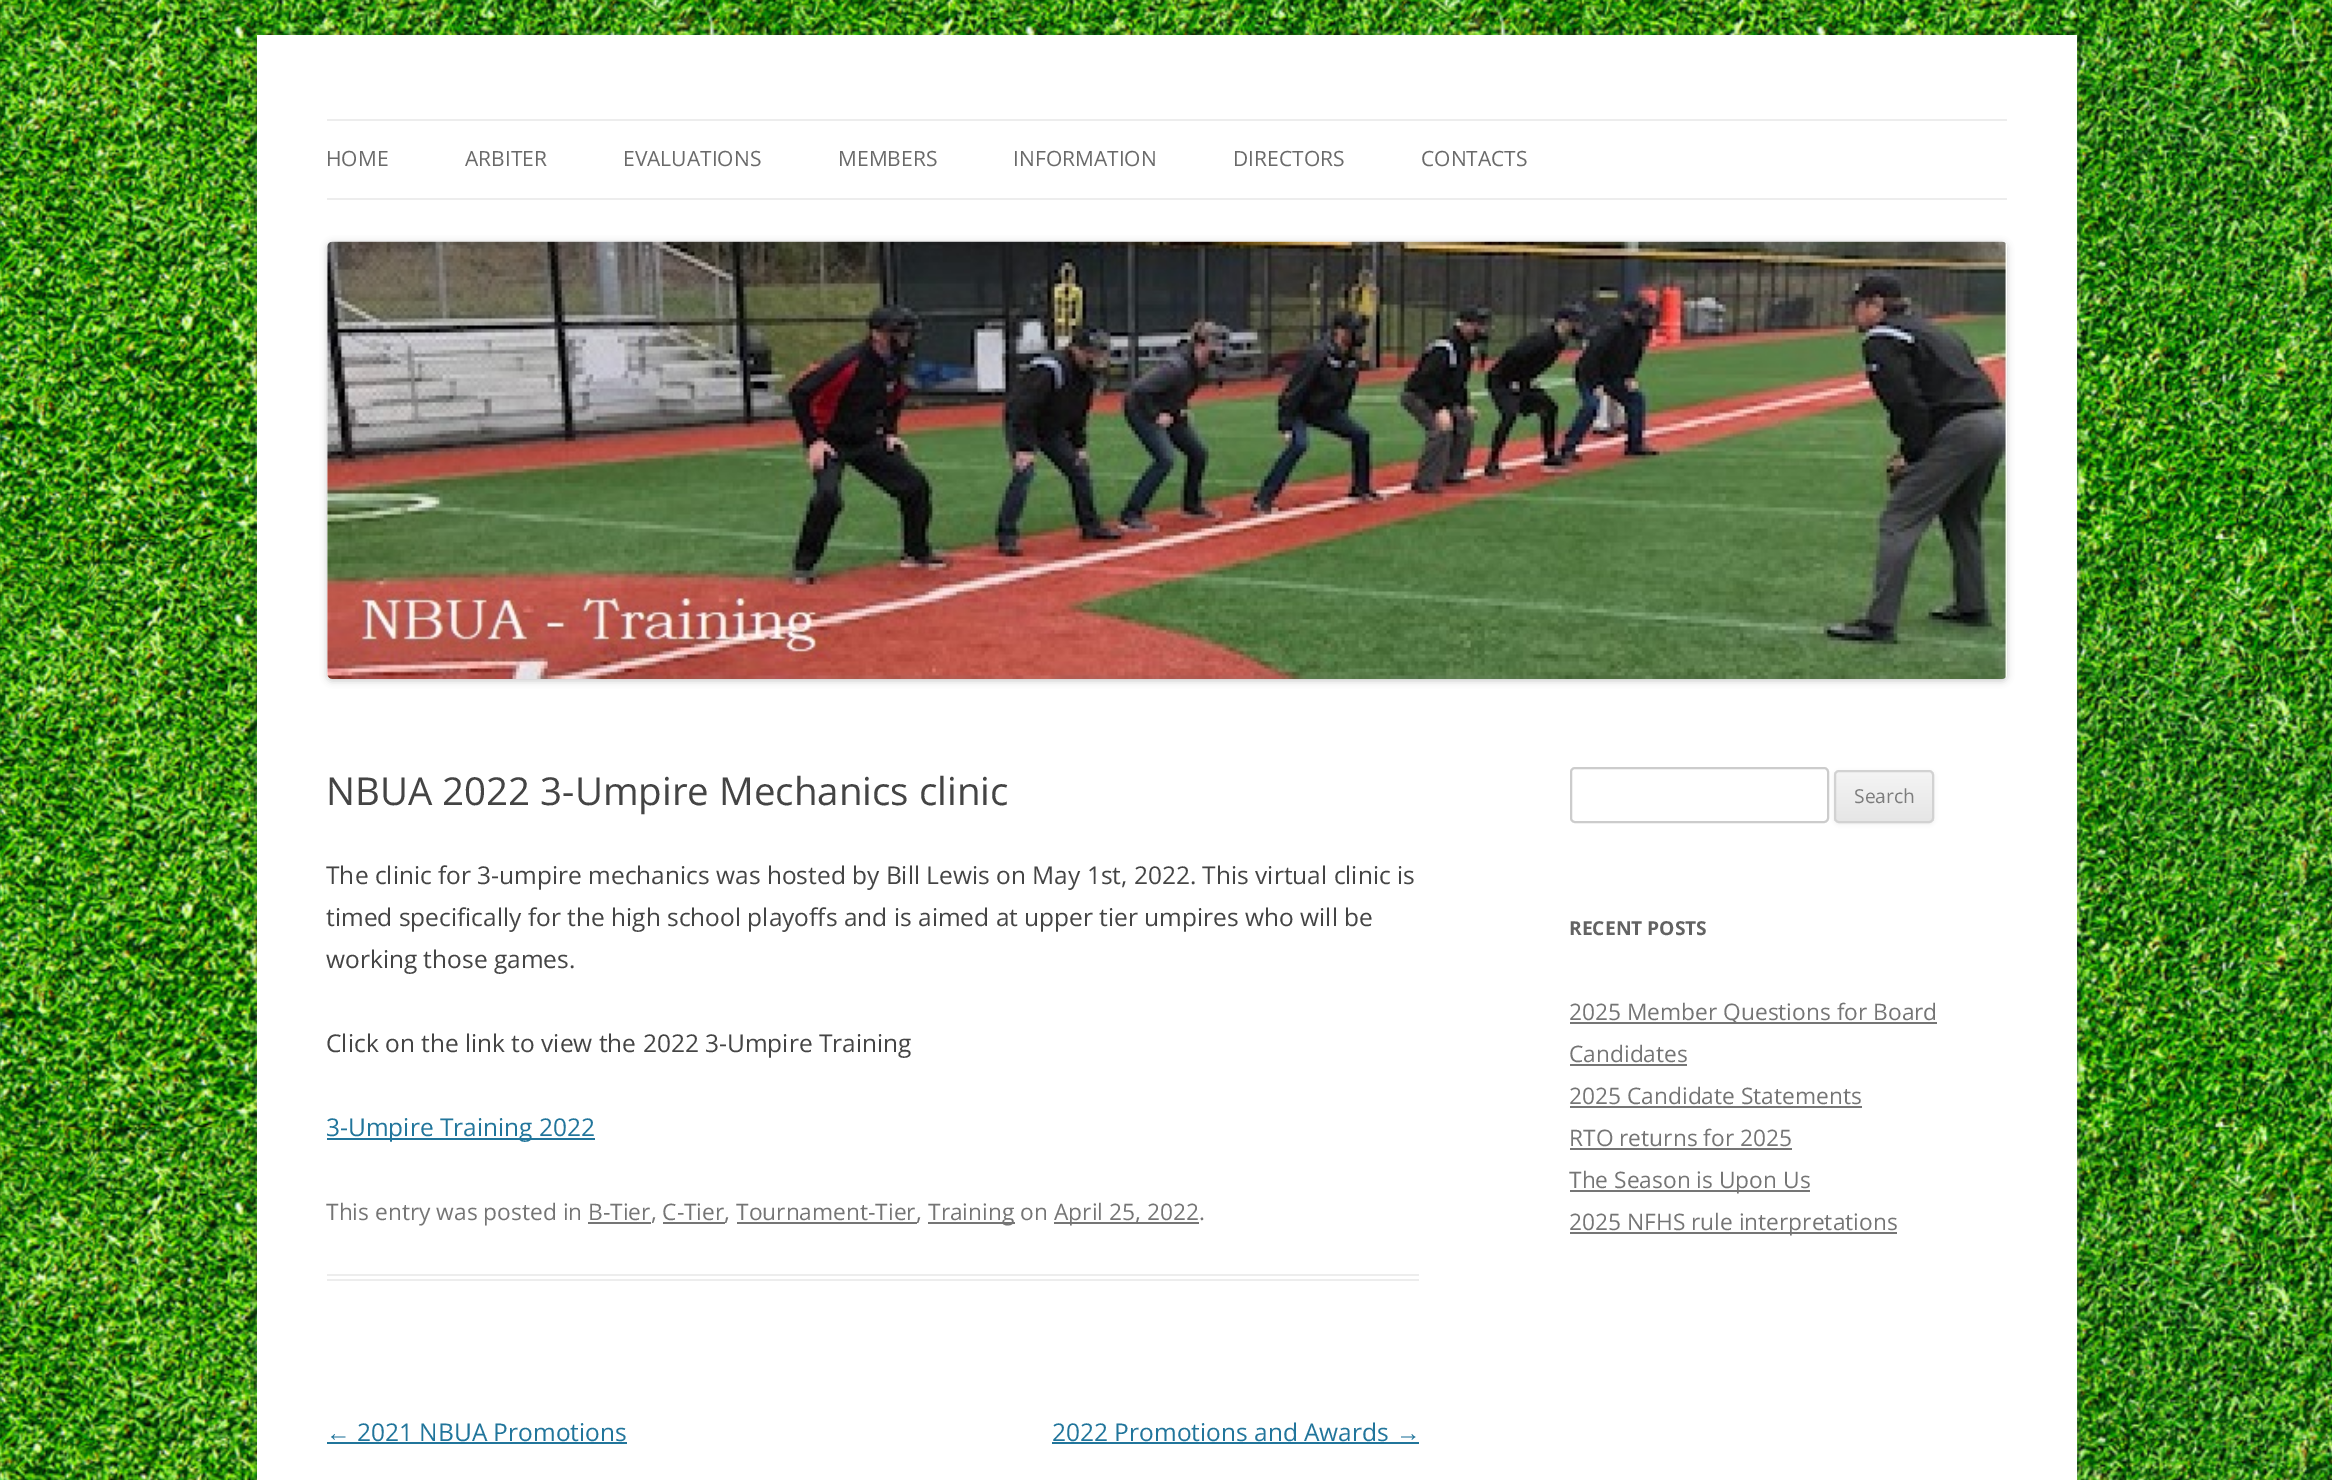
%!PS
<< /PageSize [2332 1480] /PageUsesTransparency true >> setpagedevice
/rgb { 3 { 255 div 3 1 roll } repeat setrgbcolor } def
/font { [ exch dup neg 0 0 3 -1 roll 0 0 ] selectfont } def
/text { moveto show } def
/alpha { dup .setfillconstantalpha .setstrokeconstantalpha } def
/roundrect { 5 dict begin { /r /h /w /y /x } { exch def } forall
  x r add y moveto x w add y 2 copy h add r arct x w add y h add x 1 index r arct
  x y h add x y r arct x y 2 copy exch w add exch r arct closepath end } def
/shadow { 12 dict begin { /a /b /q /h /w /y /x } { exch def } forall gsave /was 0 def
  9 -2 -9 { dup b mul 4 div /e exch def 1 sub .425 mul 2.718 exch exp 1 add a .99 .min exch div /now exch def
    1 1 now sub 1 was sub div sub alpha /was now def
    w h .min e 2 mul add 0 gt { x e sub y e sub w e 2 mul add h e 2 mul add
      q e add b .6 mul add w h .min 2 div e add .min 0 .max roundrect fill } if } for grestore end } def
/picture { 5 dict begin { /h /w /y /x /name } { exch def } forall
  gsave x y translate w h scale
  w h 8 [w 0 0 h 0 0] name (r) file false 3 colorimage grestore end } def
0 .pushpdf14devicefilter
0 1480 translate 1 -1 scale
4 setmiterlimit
255 255 255 rgb
0 0 2332 1480 rectfill
(img_01.rgb) 0 0 2332 1480 picture
100 100 100 rgb
257 39 1820 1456 0 5 0.3 shadow
255 255 255 rgb
257 35 1820 1445 rectfill
237 237 237 rgb
327 119 1680 2 rectfill
327 198 1680 2 rectfill
0 0 0 rgb
327 243 1680 438 5 3.5 0.2 shadow
(img_02.rgb) 327 241 1680 438 picture
237 237 237 rgb
327 1274 1092 2 rectfill
327 1279 1092 2 rectfill
33 117 155 rgb
327 1138 268 2 rectfill
117 117 117 rgb
928 1222 87 2 rectfill
1054 1222 145 2 rectfill
588 1222 63 2 rectfill
663 1222 62 2 rectfill
737 1222 180 2 rectfill
33 117 155 rgb
327 1442 300 2 rectfill
1052 1442 367 2 rectfill
204 204 204 rgb
2 setlinewidth
1571 768 257 54 4 roundrect stroke
64 64 64 rgb
1834 772 100 52 5 2 0.1 shadow
gsave
1834 770 100 53 5 roundrect clip newpath
gsave 1834 772 moveto 100 0 rlineto 0 49 rlineto -100 0 rlineto closepath clip newpath
<< /ShadingType 2 /ColorSpace /DeviceRGB /Coords [1884 772 1884 821] /Extend [true true] /Function << /FunctionType 2 /Domain [0 1] /C0 [0.957 0.957 0.957] /C1 [0.902 0.902 0.902] /N 1 >> >> shfill grestore
grestore
210 210 210 rgb
1835 771 98 51 4 roundrect stroke
117 117 117 rgb
1570 1022 367 2 rectfill
1570 1064 117 2 rectfill
1570 1106 292 2 rectfill
1570 1148 222 2 rectfill
1570 1190 240 2 rectfill
1570 1232 327 2 rectfill
/OpenSans-Regular 21 font
106 106 106 rgb
(HOME) 326 166 text
(ARBITER) 465 166 text
(EVALUATIONS) 623 166 text
(MEMBERS) 838 166 text
(INFORMATION) 1013 166 text
(DIRECTORS) 1233 166 text
(CONTACTS) 1421 166 text
/OpenSans-Regular 38.5 font
68 68 68 rgb
(NBUA 2022 3-Umpire Mechanics clinic) 326 805 text
/OpenSans-Regular 24.5 font
(The clinic for 3-umpire mechanics was hosted by Bill Lewis on May 1st, 2022. This virtual clinic is) 326 884 text
(timed specifically for the high school playoffs and is aimed at upper tier umpires who will be) 326 926 text
(working those games.) 326 968 text
(Click on the link to view the 2022 3-Umpire Training) 326 1052 text
33 117 155 rgb
(3-Umpire Training 2022) 326 1136 text
/OpenSans-Regular 22.75 font
117 117 117 rgb
(This entry was posted in B-Tier, C-Tier, Tournament-Tier,) 326 1220 text
(Training on) 928 1220 text
(April 25, 2022.) 1054 1220 text
/LiberationSans-Regular 24.5 font
33 117 155 rgb
(←) 326 1441 text
/OpenSans-Regular 24.5 font
(2021 NBUA Promotions) 357 1441 text
(2022 Promotions and Awards) 1052 1441 text
/LiberationSans-Regular 24.5 font
(→) 1396 1441 text
/OpenSans-Regular 19.25 font
124 124 124 rgb
(Search) 1854 803 text
/OpenSans-Bold 19.25 font
99 99 99 rgb
(RECENT POSTS) 1569 935 text
/OpenSans-Regular 22.75 font
117 117 117 rgb
(2025 Member Questions for Board) 1569 1020 text
(Candidates) 1569 1062 text
(2025 Candidate Statements) 1569 1104 text
(RTO returns for 2025) 1569 1146 text
(The Season is Upon Us) 1569 1188 text
(2025 NFHS rule interpretations) 1569 1230 text
.poppdf14devicefilter showpage
